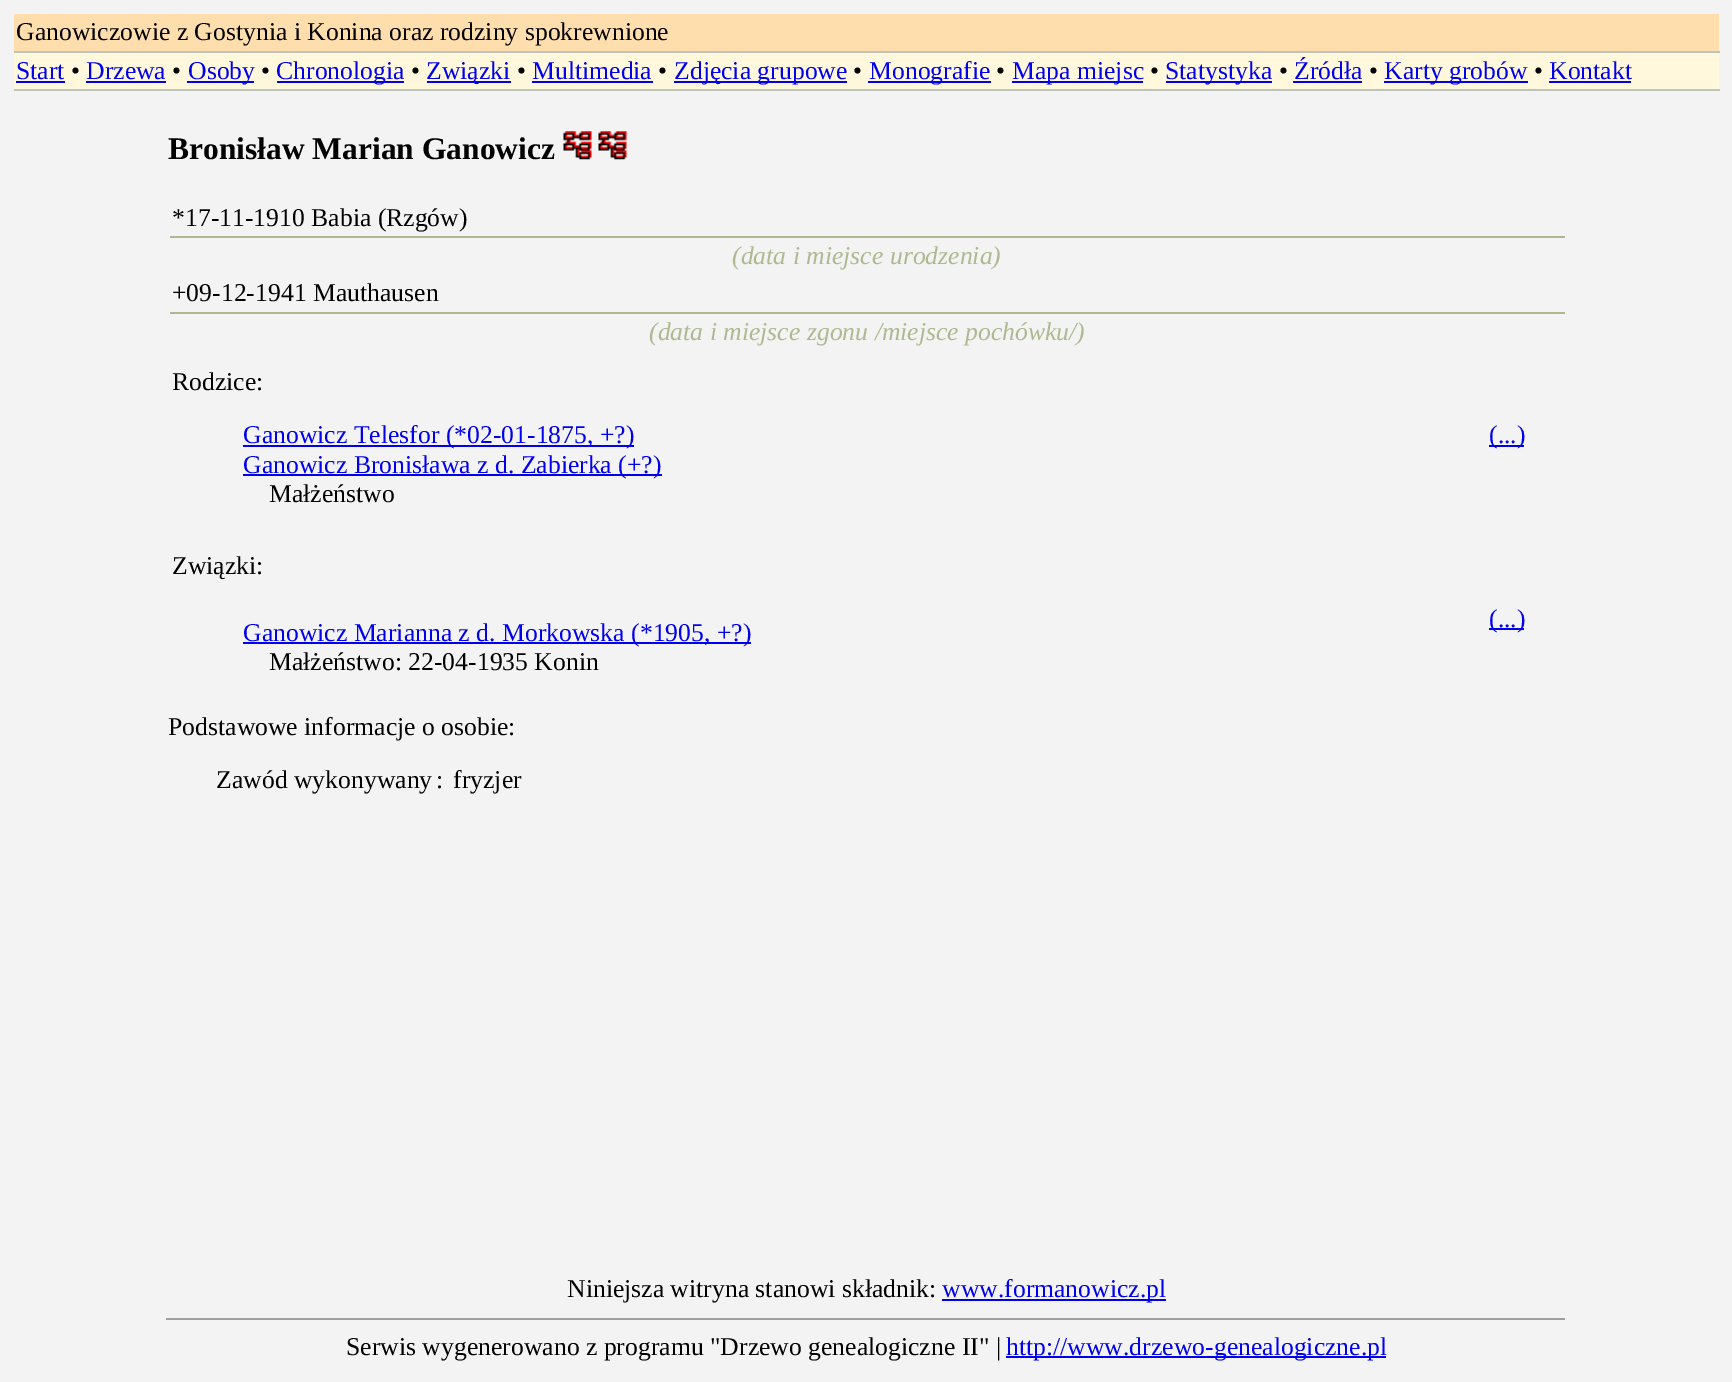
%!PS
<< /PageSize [1732 1382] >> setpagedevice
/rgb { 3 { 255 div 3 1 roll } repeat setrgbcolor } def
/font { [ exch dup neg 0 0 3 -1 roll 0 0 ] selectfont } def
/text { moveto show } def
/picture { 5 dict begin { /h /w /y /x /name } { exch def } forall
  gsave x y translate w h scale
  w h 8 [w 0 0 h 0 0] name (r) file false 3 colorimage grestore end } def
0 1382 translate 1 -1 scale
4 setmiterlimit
243 243 243 rgb
0 0 1732 1382 rectfill
255 222 173 rgb
14 14 1705 37 rectfill
189 196 189 rgb
14 51 1706 2 rectfill
255 248 220 rgb
14 53 1705 36 rectfill
189 196 189 rgb
14 89 1706 2 rectfill
0 0 238 rgb
16 81 49 2 rectfill
86 81 80 2 rectfill
187 81 67 2 rectfill
277 81 127 2 rectfill
427 81 84 2 rectfill
532 81 121 2 rectfill
674 81 173 2 rectfill
868 81 123 2 rectfill
1012 81 131 2 rectfill
1166 81 106 2 rectfill
1293 81 69 2 rectfill
1384 81 144 2 rectfill
1549 81 82 2 rectfill
(img_01.rgb) 563 131 29 29 picture
(img_01.rgb) 598 131 29 29 picture
174 185 145 rgb
170 236 1395 2 rectfill
170 312 1395 2 rectfill
0 0 238 rgb
243 445 391 2 rectfill
243 474 419 2 rectfill
1489 445 35 2 rectfill
243 642 508 2 rectfill
1489 628 35 2 rectfill
942 1299 224 2 rectfill
159 159 159 rgb
166 1318 1400 2 rectfill
238 238 238 rgb
1565 1318 2 2 rectfill
0 0 238 rgb
1006 1356 380 2 rectfill
/LiberationSerif-Regular 25.7 font
0 0 0 rgb
(Ganowiczowie z Gostynia i Konina oraz rodziny spokrewnione) 16 40 text
0 0 238 rgb
(Start) 16 79 text
0 0 0 rgb
(•) 71 79 text
0 0 238 rgb
(Drzewa) 86 79 text
0 0 0 rgb
(•) 172 79 text
0 0 238 rgb
(Osoby) 188 79 text
0 0 0 rgb
(•) 261 79 text
0 0 238 rgb
(Chronologia) 276 79 text
0 0 0 rgb
(•) 411 79 text
0 0 238 rgb
(Związki) 426 79 text
0 0 0 rgb
(•) 517 79 text
0 0 238 rgb
(Multimedia) 532 79 text
0 0 0 rgb
(•) 658 79 text
0 0 238 rgb
(Zdjęcia grupowe) 674 79 text
0 0 0 rgb
(•) 853 79 text
0 0 238 rgb
(Monografie) 869 79 text
0 0 0 rgb
(•) 996 79 text
0 0 238 rgb
(Mapa miejsc) 1012 79 text
0 0 0 rgb
(•) 1150 79 text
0 0 238 rgb
(Statystyka) 1165 79 text
0 0 0 rgb
(•) 1279 79 text
0 0 238 rgb
(Źródła) 1294 79 text
0 0 0 rgb
(•) 1369 79 text
0 0 238 rgb
(Karty grobów) 1384 79 text
0 0 0 rgb
(•) 1534 79 text
0 0 238 rgb
(Kontakt) 1549 79 text
/LiberationSerif-Bold 31.5 font
0 0 0 rgb
(Bronisław Marian Ganowicz) 168 159 text
/LiberationSerif-Regular 25.7 font
(*17-11-1910 Babia \(Rzgów\)) 172 226 text
/LiberationSerif-Italic 25.7 font
174 185 145 rgb
(\(data i miejsce urodzenia\)) 732 264 text
/LiberationSerif-Regular 25.7 font
0 0 0 rgb
(+09-12-1941 Mauthausen) 172 301 text
/LiberationSerif-Italic 25.7 font
174 185 145 rgb
(\(data i miejsce zgonu /miejsce pochówku/\)) 649 340 text
/LiberationSerif-Regular 25.7 font
0 0 0 rgb
(Rodzice:) 172 390 text
0 0 238 rgb
(Ganowicz Telesfor \(*02-01-1875, +?\)) 243 443 text
(Ganowicz Bronisława z d. Zabierka \(+?\)) 243 473 text
0 0 0 rgb
(Małżeństwo) 269 502 text
0 0 238 rgb
(\(...\)) 1489 443 text
0 0 0 rgb
(Związki:) 172 574 text
0 0 238 rgb
(Ganowicz Marianna z d. Morkowska \(*1905, +?\)) 243 641 text
0 0 0 rgb
(Małżeństwo: 22-04-1935 Konin) 269 670 text
0 0 238 rgb
(\(...\)) 1489 627 text
0 0 0 rgb
(Podstawowe informacje o osobie:) 168 735 text
(Zawód wykonywany) 216 788 text
(:) 436 788 text
(fryzjer) 453 788 text
(Niniejsza witryna stanowi składnik:) 567 1297 text
0 0 238 rgb
(www.formanowicz.pl) 942 1297 text
0 0 0 rgb
(Serwis wygenerowano z programu "Drzewo genealogiczne II" |) 346 1355 text
0 0 238 rgb
(http://www.drzewo-genealogiczne.pl) 1006 1355 text
showpage
